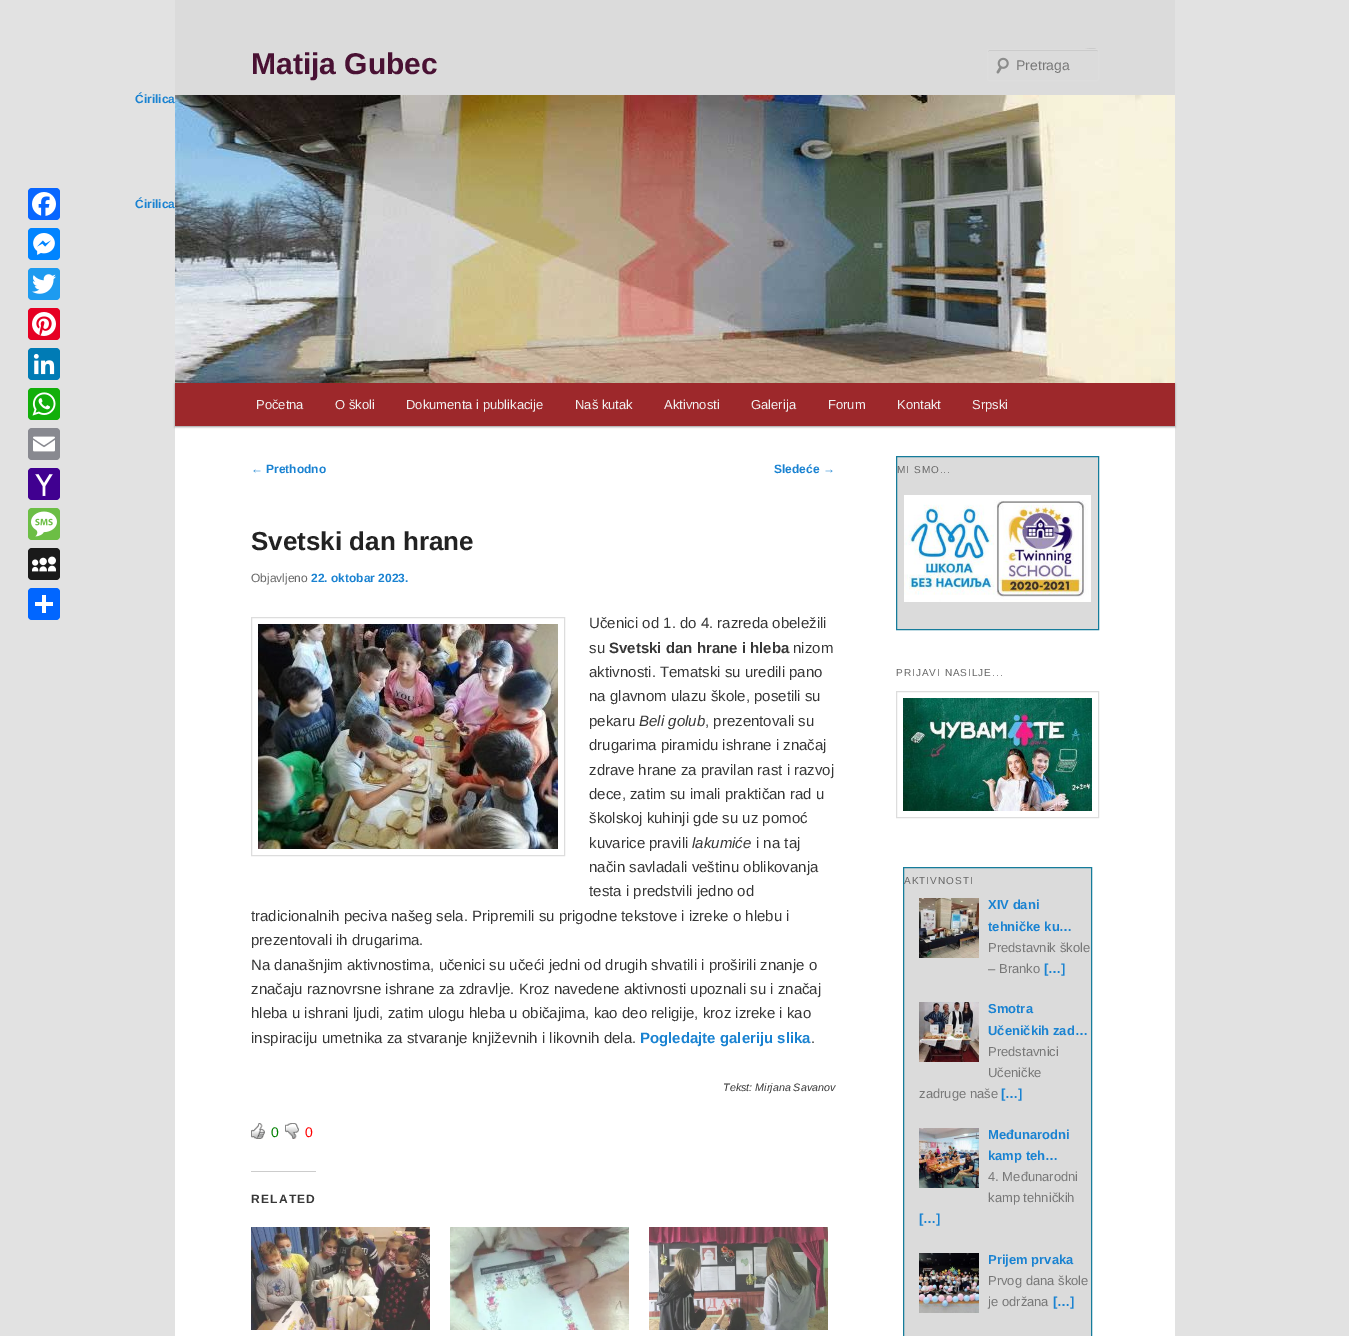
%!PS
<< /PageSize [1349 1336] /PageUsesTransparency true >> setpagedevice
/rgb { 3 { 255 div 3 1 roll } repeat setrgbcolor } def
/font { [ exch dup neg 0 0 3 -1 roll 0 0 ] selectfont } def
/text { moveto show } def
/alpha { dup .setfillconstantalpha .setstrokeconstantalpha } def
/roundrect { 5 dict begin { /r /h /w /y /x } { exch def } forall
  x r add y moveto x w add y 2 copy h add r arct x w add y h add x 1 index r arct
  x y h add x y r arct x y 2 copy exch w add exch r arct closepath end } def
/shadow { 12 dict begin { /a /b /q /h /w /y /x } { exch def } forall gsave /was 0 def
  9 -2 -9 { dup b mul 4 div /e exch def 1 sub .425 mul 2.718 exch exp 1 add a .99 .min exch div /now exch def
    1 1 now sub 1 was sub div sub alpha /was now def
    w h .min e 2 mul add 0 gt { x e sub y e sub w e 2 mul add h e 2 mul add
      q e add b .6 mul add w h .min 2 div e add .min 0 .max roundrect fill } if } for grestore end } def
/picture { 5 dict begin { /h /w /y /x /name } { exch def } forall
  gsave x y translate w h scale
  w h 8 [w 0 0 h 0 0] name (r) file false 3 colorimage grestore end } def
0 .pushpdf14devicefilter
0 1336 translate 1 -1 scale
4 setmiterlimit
226 226 226 rgb
0 0 1349 1336 rectfill
8 102 255 rgb
28 188 32 32 4 roundrect fill
(img_01.rgb) 32 192 24 24 picture
0 132 255 rgb
28 228 32 32 4 roundrect fill
(img_02.rgb) 33 233 22 22 picture
29 155 240 rgb
28 268 32 32 4 roundrect fill
(img_03.rgb) 32 274 24 20 picture
230 0 35 rgb
28 308 32 32 4 roundrect fill
(img_04.rgb) 32 312 24 24 picture
0 123 181 rgb
28 348 32 32 4 roundrect fill
(img_05.rgb) 33 353 22 22 picture
18 175 10 rgb
28 388 32 32 4 roundrect fill
(img_06.rgb) 32 392 24 24 picture
136 137 144 rgb
28 428 32 32 4 roundrect fill
(img_07.rgb) 33 436 22 16 picture
64 0 144 rgb
28 468 32 32 4 roundrect fill
(img_08.rgb) 35 474 18 23 picture
108 190 69 rgb
28 508 32 32 4 roundrect fill
(img_09.rgb) 31 511 26 26 picture
26 26 26 rgb
28 548 32 32 4 roundrect fill
(img_10.rgb) 32 556 24 16 picture
1 102 255 rgb
28 588 32 32 4 roundrect fill
255 255 255 rgb
42 595 4 18 rectfill
35 602 18 4 rectfill
175 426 1000 910 rectfill
219 219 219 rgb
175 0 1000 95 rectfill
(img_11.rgb) 996 57 13 17 picture
197 197 197 rgb
989 51 moveto 109 0 rlineto 0 1 rlineto 0 -7 -15 -2 -19 -2 rcurveto -90 0 rlineto -1 2 rlineto 0 -1 0 -1 1 -1 rcurveto closepath fill
221 221 221 rgb
987.5 49.5 111 31 1.5 roundrect stroke
0 0 0 rgb
175 384 1000 43 0 1 0.4 shadow
(img_12.rgb) 175 95 1000 288 picture
157 40 43 rgb
175 383 1000 43 rectfill
221 221 221 rgb
251.5 617.5 313 238 rectstroke
(img_13.rgb) 258 624 300 225 picture
(img_14.rgb) 251 1123 14 16 picture
(img_15.rgb) 285 1123 14 16 picture
204 204 204 rgb
251 1171 65 1 rectfill
(img_16.rgb) 251 1227 179 103 picture
(img_17.rgb) 450 1227 179 103 picture
(img_18.rgb) 649 1227 179 103 picture
219 219 219 rgb
896.5 456.5 moveto 202 0 rlineto 0 173 rlineto -202 0 rlineto closepath gsave fill grestore
21 124 155 rgb
stroke
(img_19.rgb) 904 495 187 107 picture
221 221 221 rgb
896.5 691.5 202 126 rectstroke
(img_20.rgb) 903 698 189 113 picture
219 219 219 rgb
903.5 867.5 moveto 188 0 rlineto 0 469 rlineto -188 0 rlineto closepath gsave fill grestore
21 124 155 rgb
stroke
(img_21.rgb) 919 898 60 60 picture
(img_22.rgb) 919 1002 60 60 picture
(img_23.rgb) 919 1128 60 60 picture
(img_24.rgb) 919 1253 60 60 picture
/LiberationSans-Bold 30 font
73 17 51 rgb
(Matija Gubec) 251 74 text
/LiberationSans-Regular 14 font
119 119 119 rgb
(Pretraga) 1016 70 text
/LiberationSans-Bold 12 font
25 130 209 rgb
(Ćirilica) 135 208 text
/LiberationSans-Regular 13 font
241 241 241 rgb
(Početna) 256 409 text
(O školi) 335 409 text
(Dokumenta i publikacije) 406 409 text
(Naš kutak) 575 409 text
(Aktivnosti) 664 409 text
(Galerija) 751 409 text
(Forum) 828 409 text
(Kontakt) 897 409 text
(Srpski) 972 409 text
/LiberationSans-Bold 12 font
25 130 209 rgb
(Ćirilica) 135 103 text
/LiberationSans-Regular 12 font
(←) 251 473 text
/LiberationSans-Bold 12 font
(Prethodno) 266 473 text
(Sledeće) 774 473 text
/LiberationSans-Regular 12 font
(→) 823 473 text
/LiberationSans-Bold 26 font
34 34 34 rgb
(Svetski dan hrane) 251 550 text
/LiberationSans-Regular 12 font
102 102 102 rgb
(Objavljeno) 251 582 text
/LiberationSans-Bold 12 font
25 130 209 rgb
(22. oktobar 2023.) 311 582 text
/LiberationSans-Regular 15 font
55 55 55 rgb
(Učenici od 1. do 4. razreda obeležili) 589 628 text
(su) 589 653 text
/LiberationSans-Bold 15 font
(Svetski dan hrane i hleba) 609 653 text
/LiberationSans-Regular 15 font
(nizom) 793 653 text
(aktivnosti. Tematski su uredili pano) 589 677 text
(na glavnom ulazu škole, posetili su) 589 701 text
(pekaru) 589 726 text
/LiberationSans-Italic 15 font
(Beli golub) 639 726 text
/LiberationSans-Regular 15 font
(, prezentovali su) 705 726 text
(drugarima piramidu ishrane i značaj) 589 750 text
(zdrave hrane za pravilan rast i razvoj) 589 775 text
(dece, zatim su imali praktičan rad u) 589 799 text
(školskoj kuhinji gde su uz pomoć) 589 823 text
(kuvarice pravili) 589 848 text
/LiberationSans-Italic 15 font
(lakumiće) 692 848 text
/LiberationSans-Regular 15 font
(i na taj) 756 848 text
(način savladali veštinu oblikovanja) 589 872 text
(testa i predstvili jedno od) 589 896 text
(tradicionalnih peciva našeg sela. Pripremili su prigodne tekstove i izreke o hlebu i) 251 921 text
(prezentovali ih drugarima.) 251 945 text
(Na današnjim aktivnostima, učenici su učeći jedni od drugih shvatili i proširili znanje o) 251 970 text
(značaju raznovrsne ishrane za zdravlje. Kroz navedene aktivnosti upoznali su i značaj) 251 994 text
(hleba u ishrani ljudi, zatim ulogu hleba u običajima, kao deo religije, kroz izreke i kao) 251 1018 text
(inspiraciju umetnika za stvaranje književnih i likovnih dela.) 251 1043 text
/LiberationSans-Bold 15 font
25 130 209 rgb
(Pogledajte galeriju slika) 640 1043 text
/LiberationSans-Regular 15 font
55 55 55 rgb
(.) 811 1043 text
/LiberationSans-Italic 10.75 font
(Tekst: Mirjana Savanov) 723 1091 text
/LiberationSans-Regular 14 font
0 128 0 rgb
(0) 271 1137 text
255 0 0 rgb
(0) 305 1137 text
/LiberationSans-Bold 12 font
55 55 55 rgb
251 1203 moveto 1.25 0 (RELATED) ashow
/LiberationSans-Regular 10 font
102 102 102 rgb
897 473 moveto 1 0 (MI SMO...) ashow
896 676 moveto 1 0 (PRIJAVI NASILJE...) ashow
904 884 moveto 1 0 (AKTIVNOSTI) ashow
/LiberationSans-Bold 13 font
25 130 209 rgb
(XIV dani) 988 909 text
(tehničke ku…) 988 931 text
/LiberationSans-Regular 13 font
119 119 119 rgb
(Predstavnik škole) 988 952 text
(– Branko) 988 973 text
/LiberationSans-Bold 13 font
25 130 209 rgb
([…]) 1044 973 text
(Smotra) 988 1013 text
(Učeničkih zad…) 988 1035 text
/LiberationSans-Regular 13 font
119 119 119 rgb
(Predstavnici) 988 1056 text
(Učeničke) 988 1077 text
(zadruge naše) 919 1098 text
/LiberationSans-Bold 13 font
25 130 209 rgb
([…]) 1001 1098 text
(Međunarodni) 988 1139 text
(kamp teh…) 988 1160 text
/LiberationSans-Regular 13 font
119 119 119 rgb
(4. Međunarodni) 988 1181 text
(kamp tehničkih) 988 1202 text
/LiberationSans-Bold 13 font
25 130 209 rgb
([…]) 919 1223 text
(Prijem prvaka) 988 1264 text
/LiberationSans-Regular 13 font
119 119 119 rgb
(Prvog dana škole) 988 1285 text
(je održana) 988 1306 text
/LiberationSans-Bold 13 font
25 130 209 rgb
([…]) 1053 1306 text
.poppdf14devicefilter showpage
